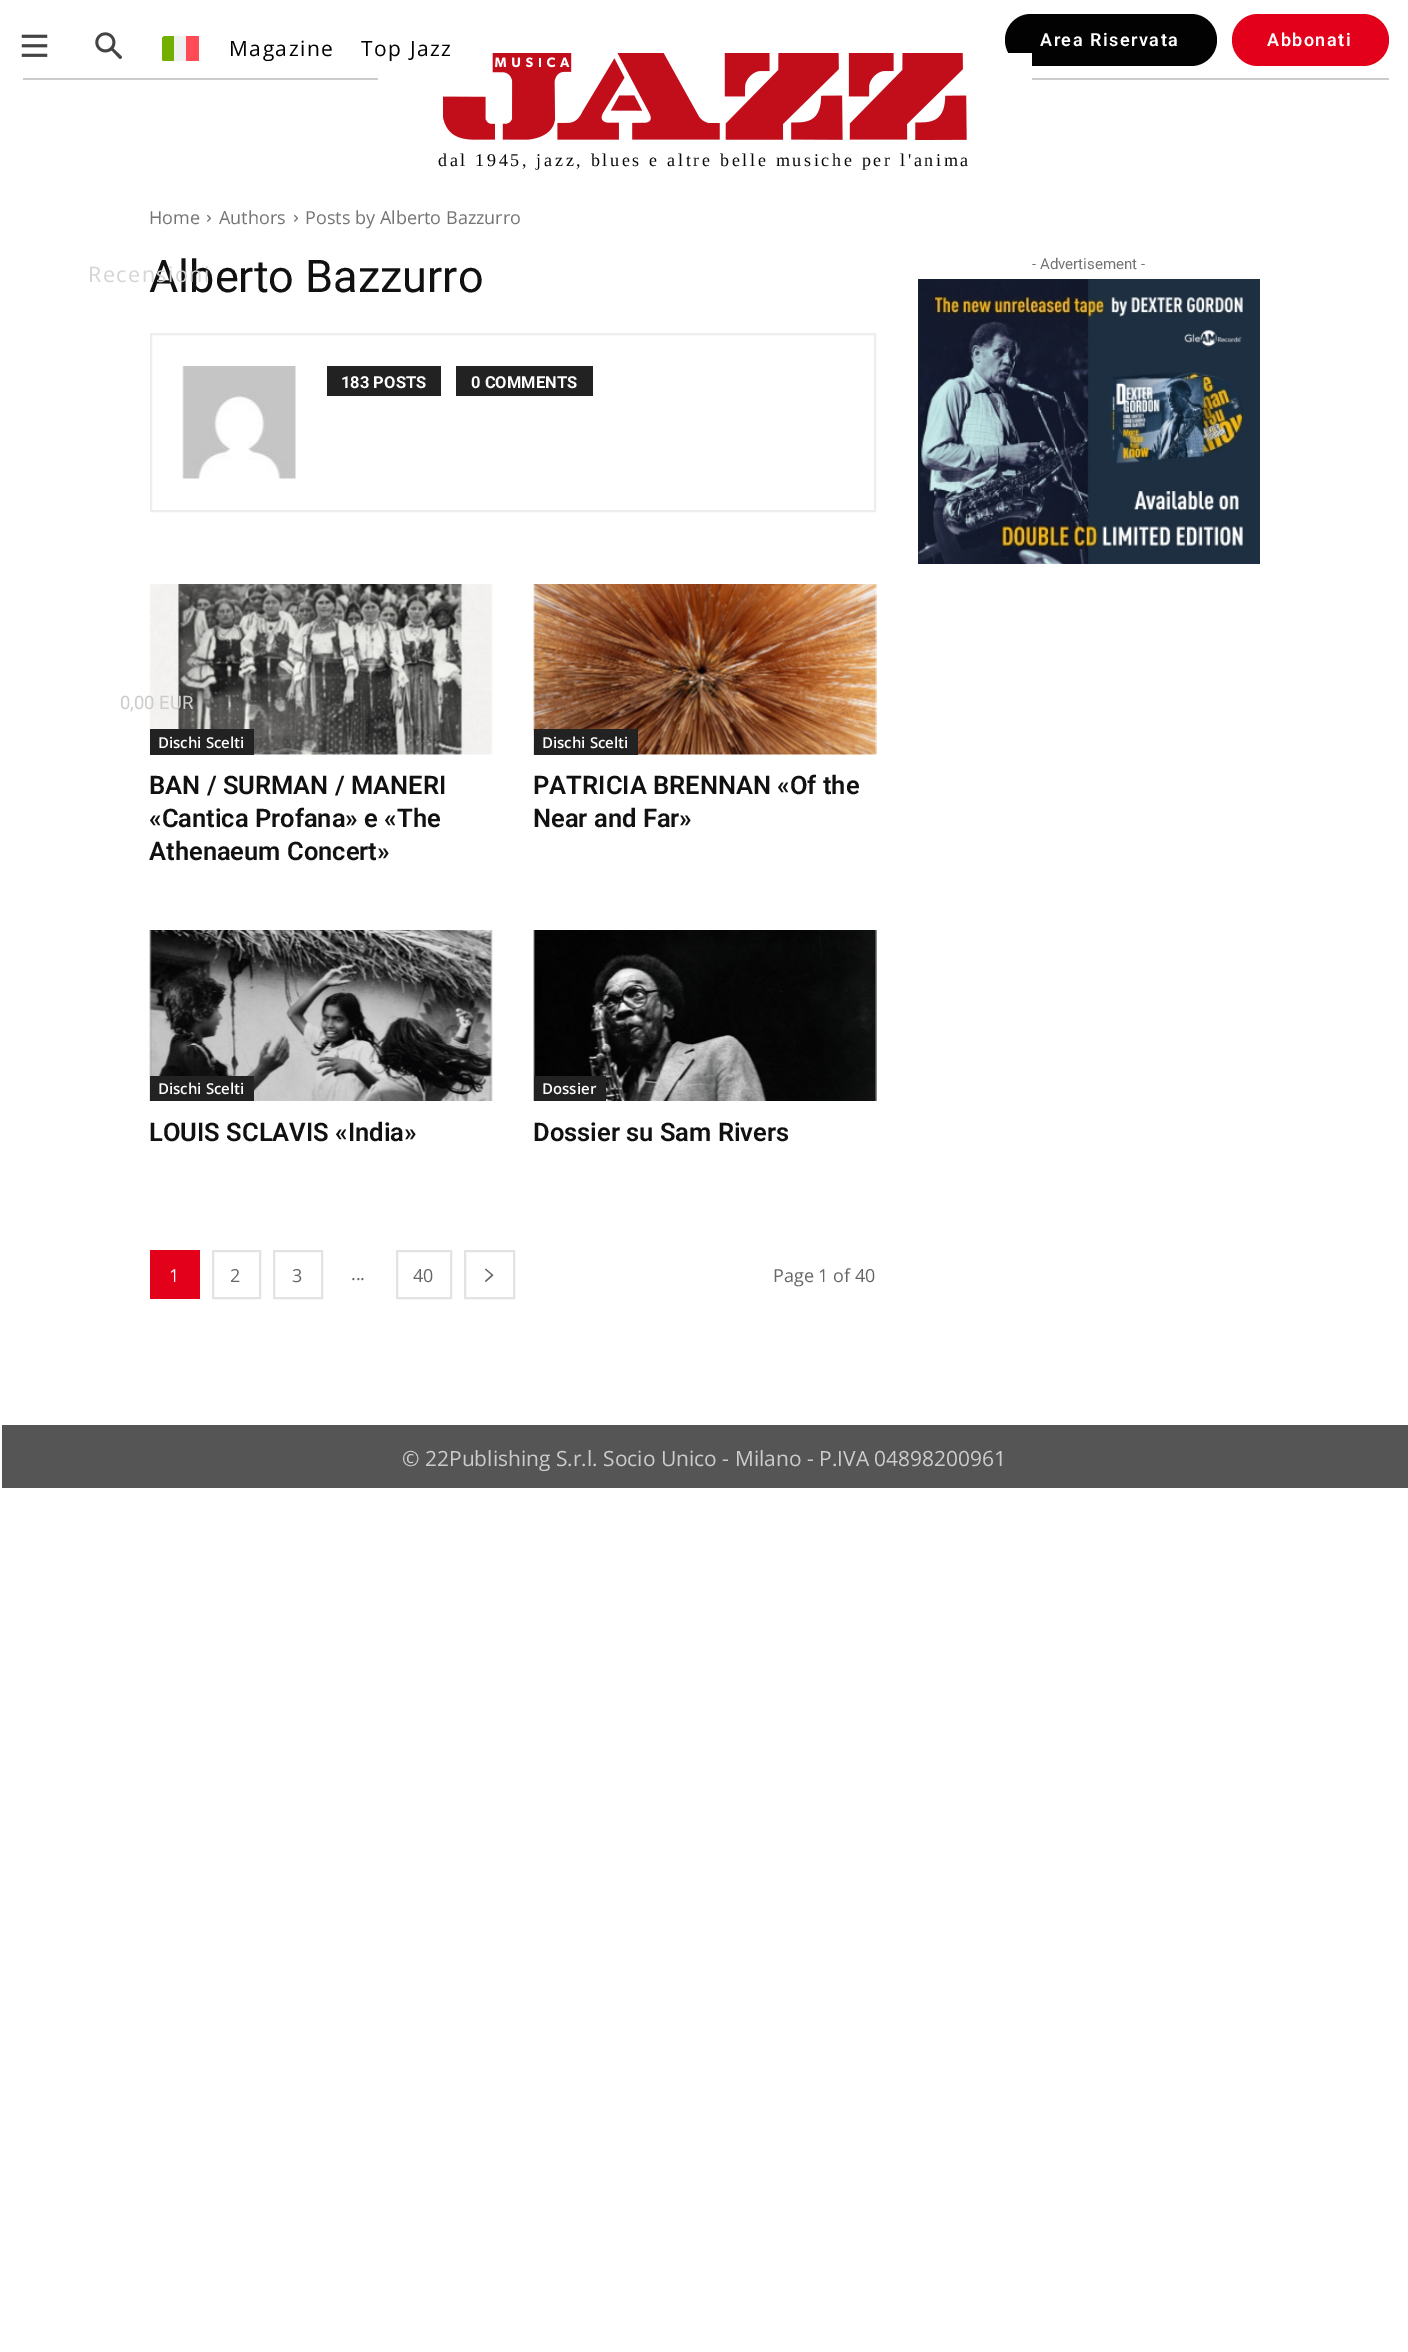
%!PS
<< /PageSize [1408 2352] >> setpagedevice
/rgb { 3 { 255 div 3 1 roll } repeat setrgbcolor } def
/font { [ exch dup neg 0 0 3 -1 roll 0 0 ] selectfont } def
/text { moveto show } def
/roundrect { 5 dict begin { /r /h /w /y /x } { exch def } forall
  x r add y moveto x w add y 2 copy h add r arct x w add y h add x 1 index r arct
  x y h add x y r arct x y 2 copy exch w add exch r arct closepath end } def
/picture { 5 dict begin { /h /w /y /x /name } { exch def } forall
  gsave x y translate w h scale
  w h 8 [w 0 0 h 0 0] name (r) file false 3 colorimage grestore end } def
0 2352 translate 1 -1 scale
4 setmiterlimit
255 255 255 rgb
0 0 1408 2352 rectfill
204 204 204 rgb
23 78 1366 2 rectfill
(img_01.rgb) 21 34 27 23 picture
(img_02.rgb) 95 32 27 27 picture
240 240 240 rgb
199 61 moveto -36 0 rlineto -0.5 -0.5 -1 -1 -1 -2 rcurveto 0 -20 rlineto 0 -1 0.5 -2.5 2 -3 rcurveto 34 0 rlineto 1 0.5 rlineto closepath fill
gsave
162 36 38 26 rectclip
115 175 0 rgb
174 36 moveto -14 0 -12 -1.5 -12 13 rcurveto 0 6.5 rlineto 0 1.5 -0.5 4 1 5.5 rcurveto 11 0 rlineto closepath fill
grestore
255 75 85 rgb
198 36 moveto -12 0 rlineto 0 25 rlineto 13 0 rlineto 0 -24.5 rlineto closepath fill
2 2 2 rgb
1005 14 212 52 26 roundrect fill
226 0 26 rgb
1232 14 157 52 26 roundrect fill
255 255 255 rgb
378 53 654 27 rectfill
(img_03.rgb) 443 53 524 87 picture
(img_04.rgb) 207 214 4 8 picture
(img_04.rgb) 294 214 4 8 picture
237 237 237 rgb
2 setlinewidth
151 334 724 177 rectstroke
(img_05.rgb) 182 366 114 113 picture
34 34 34 rgb
327 366 114 30 rectfill
456 366 137 30 rectfill
(img_06.rgb) 149 584 344 171 picture
150 729 104 26 rectfill
(img_07.rgb) 533 584 344 171 picture
534 729 104 26 rectfill
(img_08.rgb) 149 930 344 171 picture
150 1076 104 25 rectfill
(img_09.rgb) 533 930 344 171 picture
534 1076 72 25 rectfill
226 0 26 rgb
150 1250 50 49 rectfill
227 227 227 rgb
213 1251 47 47 rectstroke
274 1251 48 47 rectstroke
397 1251 54 47 rectstroke
465 1251 49 47 rectstroke
(img_10.rgb) 484 1268 10 14 picture
(img_11.rgb) 918 279 342 285 picture
85 85 85 rgb
2 1425 1406 63 rectfill
/Roboto-Regular 18.5 font
204 204 204 rgb
(0,00 EUR) 120 709 text
/OpenSans-Regular 21 font
0 0 0 rgb
229 56 moveto 1.5 0 (Magazine) ashow
361 56 moveto 1.5 0 (Top Jazz) ashow
/Roboto-SemiBold 18 font
255 255 255 rgb
1040 46 moveto 1.5 0 (Area Riservata) ashow
1267 46 moveto 1.5 0 (Abbonati) ashow
/LiberationSerif-Regular 18 font
10 10 10 rgb
438 166 moveto 2.7 0 (dal 1945, jazz, blues e altre belle musiche per l'anima) ashow
/OpenSans-Regular 18 font
116 116 116 rgb
(Home) 149 224 text
(Authors) 219 224 text
(Posts by Alberto Bazzurro) 305 224 text
/Roboto-Regular 45 font
17 17 17 rgb
(Alberto Bazzurro) 149 292 text
/OpenSans-Regular 21.5 font
213 213 213 rgb
88 282 moveto 1.5 0 (Recensioni) ashow
/Roboto-Bold 16.5 font
255 255 255 rgb
(183 POSTS) 341 388 text
(0 COMMENTS) 471 388 text
/OpenSans-SemiBold 15 font
(Dischi Scelti) 158 748 text
/Roboto-SemiBold 25.5 font
17 17 17 rgb
(BAN / SURMAN / MANERI) 149 794 text
(«Cantica Profana» e «The) 149 827 text
(Athenaeum Concert») 149 860 text
/OpenSans-SemiBold 15 font
255 255 255 rgb
(Dischi Scelti) 542 748 text
/Roboto-SemiBold 25.5 font
17 17 17 rgb
(PATRICIA BRENNAN «Of the) 533 794 text
(Near and Far») 533 827 text
/OpenSans-SemiBold 15 font
255 255 255 rgb
(Dischi Scelti) 158 1094 text
/Roboto-SemiBold 25.5 font
17 17 17 rgb
(LOUIS SCLAVIS «India») 149 1141 text
/OpenSans-SemiBold 15 font
255 255 255 rgb
(Dossier) 542 1094 text
/Roboto-SemiBold 25.5 font
17 17 17 rgb
(Dossier su Sam Rivers) 533 1141 text
/OpenSans-Regular 18 font
255 255 255 rgb
(1) 169 1282 text
102 102 102 rgb
(2) 230 1282 text
(3) 292 1282 text
(...) 351 1280 text
(40) 413 1282 text
(Page 1 of 40) 773 1282 text
/Roboto-Regular 15 font
116 116 116 rgb
(- Advertisement -) 1032 269 text
/OpenSans-Regular 21 font
204 204 204 rgb
(© 22Publishing S.r.l. Socio Unico - Milano - P.IVA 04898200961) 402 1466 text
showpage
